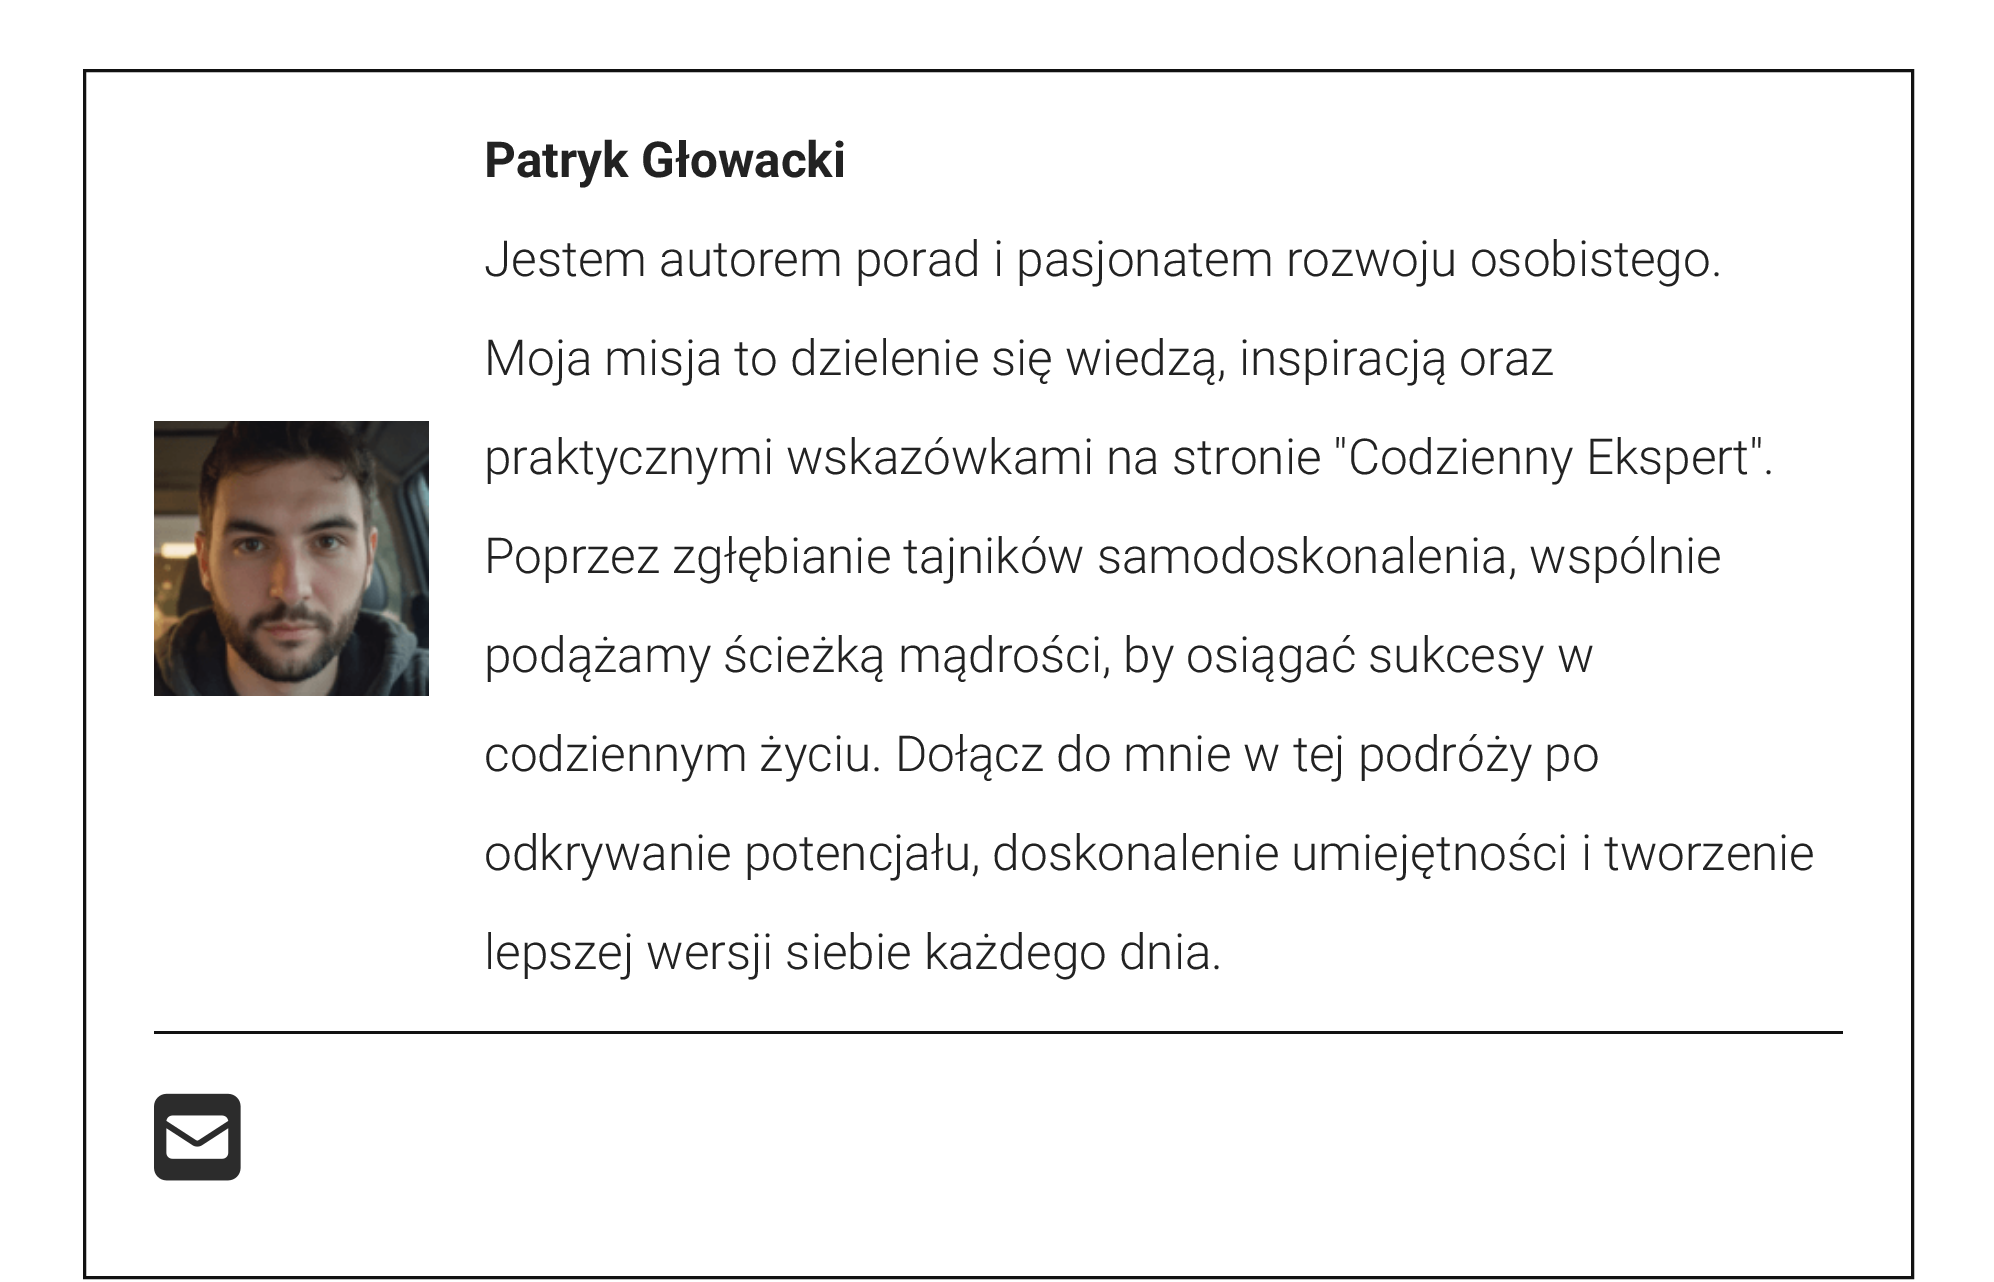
%!PS
<< /PageSize [1994 1282] >> setpagedevice
/rgb { 3 { 255 div 3 1 roll } repeat setrgbcolor } def
/font { [ exch dup neg 0 0 3 -1 roll 0 0 ] selectfont } def
/text { moveto show } def
/picture { 5 dict begin { /h /w /y /x /name } { exch def } forall
  gsave x y translate w h scale
  w h 8 [w 0 0 h 0 0] name (r) file false 3 colorimage grestore end } def
0 1282 translate 1 -1 scale
4 setmiterlimit
255 255 255 rgb
0 0 1994 1282 rectfill
17 17 17 rgb
3 setlinewidth
84.5 70.5 1828 1207 rectstroke
(img_01.rgb) 154 421 275 275 picture
154 1031 1689 3 rectfill
(img_02.rgb) 154 1093 87 88 picture
/Roboto-Bold 49.5 font
34 34 34 rgb
(Patryk Głowacki) 484 177 text
/Roboto-Light 49.5 font
(Jestem autorem porad i pasjonatem rozwoju osobistego.) 484 276 text
(Moja misja to dzielenie się wiedzą, inspiracją oraz) 484 375 text
(praktycznymi wskazówkami na stronie "Codzienny Ekspert".) 484 474 text
(Poprzez zgłębianie tajników samodoskonalenia, wspólnie) 484 573 text
(podążamy ścieżką mądrości, by osiągać sukcesy w) 484 672 text
(codziennym życiu. Dołącz do mnie w tej podróży po) 484 771 text
(odkrywanie potencjału, doskonalenie umiejętności i tworzenie) 484 870 text
(lepszej wersji siebie każdego dnia.) 484 969 text
showpage
